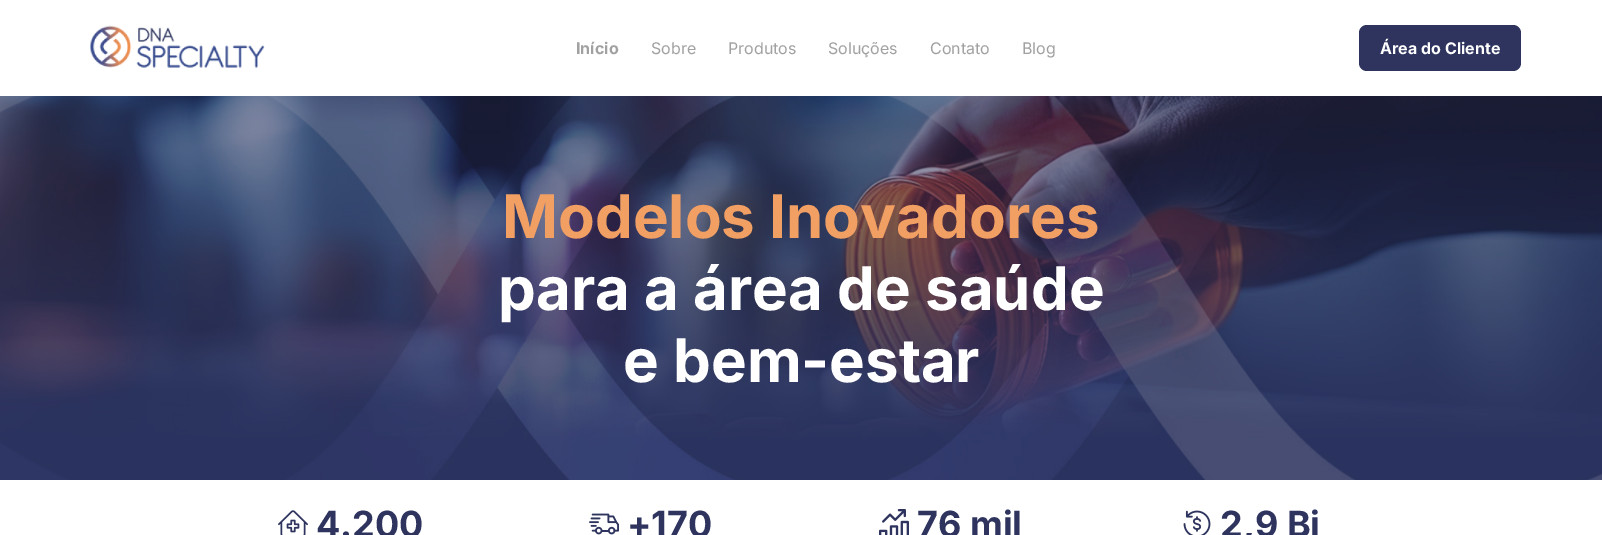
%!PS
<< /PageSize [1602 535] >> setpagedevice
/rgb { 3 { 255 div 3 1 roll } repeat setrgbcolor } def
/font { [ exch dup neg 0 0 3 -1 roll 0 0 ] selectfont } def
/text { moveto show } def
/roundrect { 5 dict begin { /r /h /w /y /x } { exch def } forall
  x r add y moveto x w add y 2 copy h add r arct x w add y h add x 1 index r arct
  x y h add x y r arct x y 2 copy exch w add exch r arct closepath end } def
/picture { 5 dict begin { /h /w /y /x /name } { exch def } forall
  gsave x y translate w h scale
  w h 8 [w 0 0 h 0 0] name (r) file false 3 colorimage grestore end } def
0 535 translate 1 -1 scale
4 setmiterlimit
255 255 255 rgb
0 0 1602 535 rectfill
(img_01.rgb) 90 25 175 43 picture
46 52 94 rgb
1359 25 162 46 8 roundrect fill
(img_02.rgb) 0 96 1602 384 picture
(img_03.rgb) 278 510 30 25 picture
(img_04.rgb) 589 513 30 22 picture
(img_05.rgb) 879 509 30 26 picture
(img_06.rgb) 1183 510 28 25 picture
/Inter-Bold 16 font
161 161 161 rgb
(Início) 576 54 text
/Inter-Regular 16 font
(Sobre) 651 54 text
(Produtos) 728 54 text
(Soluções) 828 54 text
(Contato) 930 54 text
(Blog) 1022 54 text
/Inter-Bold 16 font
255 255 255 rgb
(Área do Cliente) 1380 54 text
/Inter-Bold 60 font
242 159 100 rgb
(Modelos Inovadores) 502 238 text
255 255 255 rgb
(para a área de saúde) 498 310 text
(e bem-estar) 623 382 text
/Inter-Bold 36 font
46 52 94 rgb
(4.200) 316 537 text
(+170) 627 537 text
(76 mil) 917 537 text
(2,9 Bi) 1220 537 text
showpage
